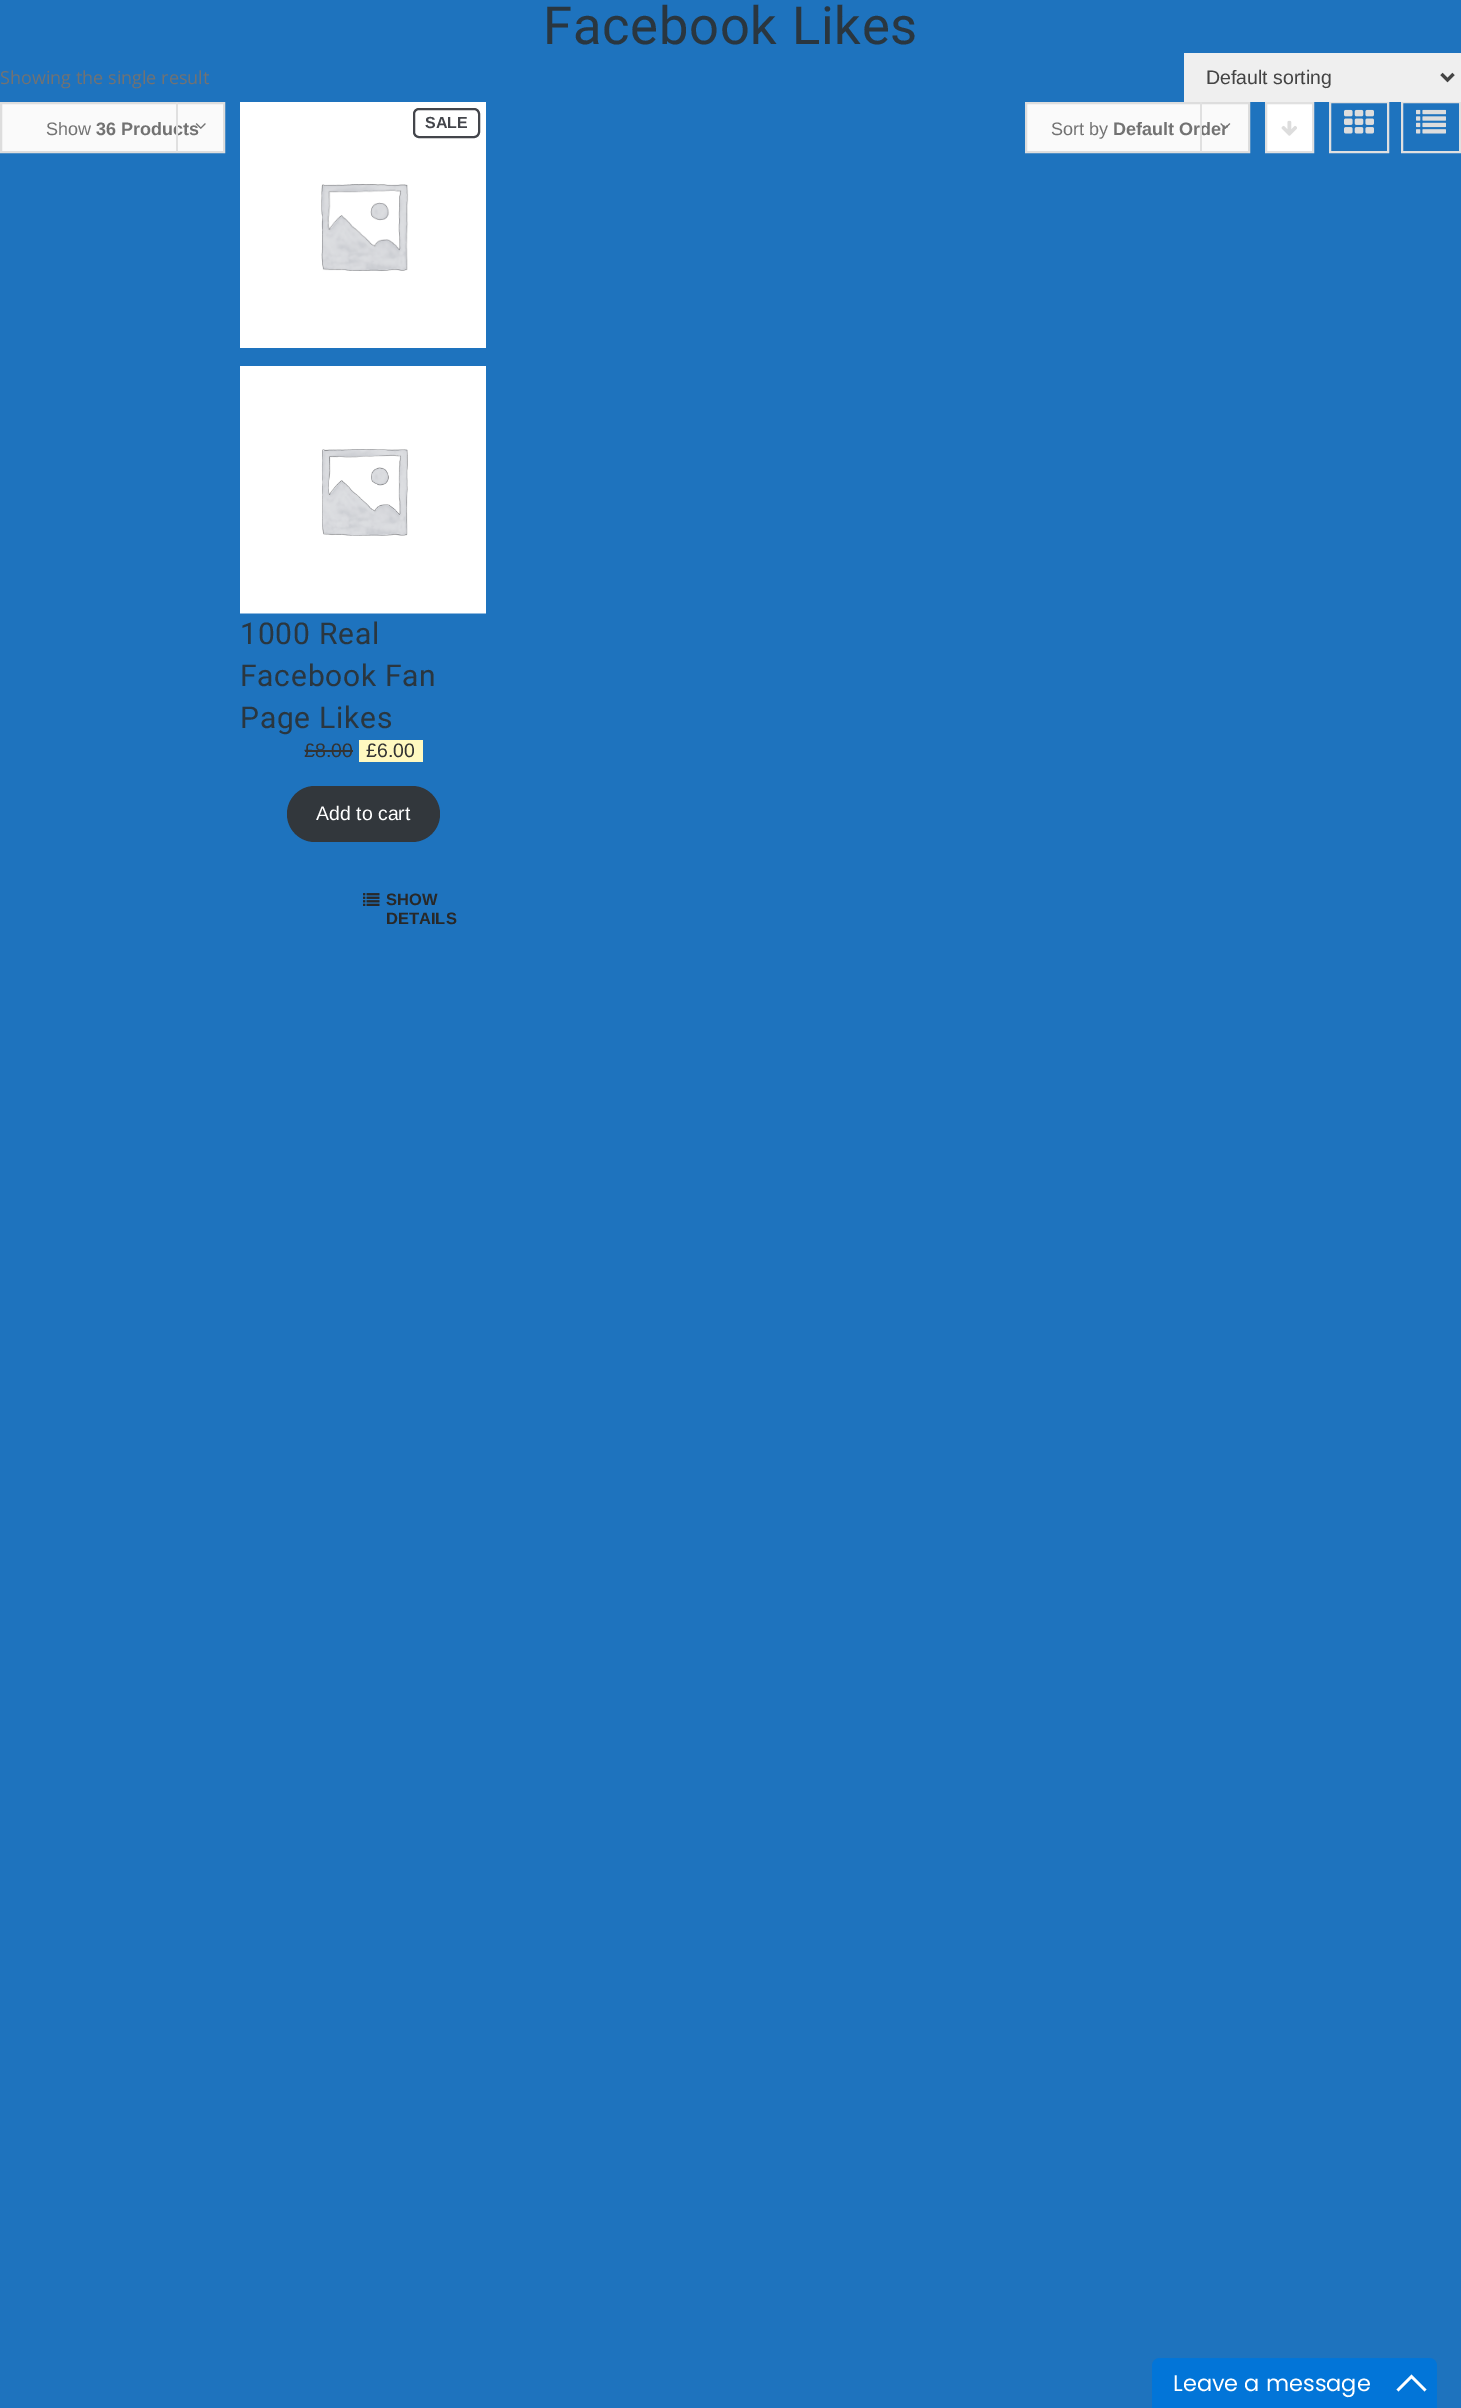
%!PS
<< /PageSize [1461 2408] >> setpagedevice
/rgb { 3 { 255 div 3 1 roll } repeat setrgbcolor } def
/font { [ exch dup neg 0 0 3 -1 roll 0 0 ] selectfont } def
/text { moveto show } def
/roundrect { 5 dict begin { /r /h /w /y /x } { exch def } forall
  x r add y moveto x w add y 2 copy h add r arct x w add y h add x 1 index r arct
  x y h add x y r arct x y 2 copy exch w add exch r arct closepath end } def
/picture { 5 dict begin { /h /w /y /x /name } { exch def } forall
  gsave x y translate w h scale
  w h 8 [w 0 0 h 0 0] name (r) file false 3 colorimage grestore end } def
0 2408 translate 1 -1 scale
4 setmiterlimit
30 115 190 rgb
0 0 1461 2408 rectfill
224 224 224 rgb
2 setlinewidth
1330 102 58 50 rectstroke
1402 102 58 50 rectstroke
239 239 239 rgb
1184 53 277 49 rectfill
68 68 68 rgb
3 setlinewidth
1441.5 74 moveto 6 6 rlineto 6 -6 rlineto stroke
(img_01.rgb) 240 102 246 246 picture
67 69 75 rgb
2 setlinewidth
414 109 65 28 5 roundrect stroke
(img_02.rgb) 240 366 246 248 picture
51 51 51 rgb
305 750 48 2 rectfill
255 249 192 rgb
359 740 64 22 rectfill
50 55 60 rgb
287 786 153 56 28 roundrect fill
(img_03.rgb) 363 893 17 13 picture
(img_04.rgb) 1344 109 30 25 picture
(img_05.rgb) 1416 109 30 25 picture
250 250 250 rgb
1 103 moveto 223 0 rlineto 0 49 rlineto -223 0 rlineto closepath gsave fill grestore
221 221 221 rgb
stroke
250 250 250 rgb
1026 103 moveto 223 0 rlineto 0 49 rlineto -223 0 rlineto closepath gsave fill grestore
221 221 221 rgb
stroke
255 255 255 rgb
1266 103 moveto 47 0 rlineto 0 49 rlineto -47 0 rlineto closepath gsave fill grestore
224 224 224 rgb
stroke
(img_08.rgb) 1281 120 16 16 picture
2 117 216 rgb
1160 2358 moveto 269 0 rlineto 4.5 0 8 3.5 8 8 rcurveto 0 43 rlineto -285 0 rlineto 0 -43 rlineto 0 -4.5 3.5 -8 8 -8 rcurveto closepath fill
255 255 255 rgb
1411.5 2374.5 moveto 15 15 rlineto -2 2 rlineto -13 -13 rlineto -13 13 rlineto -2 -2 rlineto closepath fill
/Roboto-Regular 52.5 font
42 54 63 rgb
543 44 moveto 0.75 0 (Facebook Likes) ashow
/OpenSans-Regular 18 font
114 114 114 rgb
(Showing the single result) 0 84 text
/LiberationSans-Regular 19.5 font
68 68 68 rgb
(Default sorting) 1206 84 text
/LiberationSans-Bold 16 font
67 69 75 rgb
(SALE) 425 128 text
/Roboto-Regular 30 font
42 54 63 rgb
240 644 moveto 0.75 0 (1000 Real) ashow
240 686 moveto 0.75 0 (Facebook Fan) ashow
240 728 moveto 0.75 0 (Page Likes) ashow
/LiberationSans-Regular 19.5 font
51 51 51 rgb
(£8.00) 304 757 text
(£6.00) 366 757 text
255 255 255 rgb
(Add to cart) 316 820 text
/LiberationSans-Bold 16.5 font
40 40 40 rgb
(SHOW) 386 905 text
(DETAILS) 386 924 text
/LiberationSans-Regular 18 font
114 114 114 rgb
(Show) 46 135 text
/LiberationSans-Bold 18 font
(36 Products) 96 135 text
(img_06.rgb) 195 123 11 6 picture
224 224 224 rgb
176 102 2 50 rectfill
/LiberationSans-Regular 18 font
114 114 114 rgb
(Sort by) 1051 135 text
/LiberationSans-Bold 18 font
(Default Order) 1113 135 text
(img_07.rgb) 1220 123 11 6 picture
224 224 224 rgb
1200 102 2 50 rectfill
/Poppins-Regular 22.5 font
255 255 255 rgb
(Leave a message) 1173 2391 text
showpage
